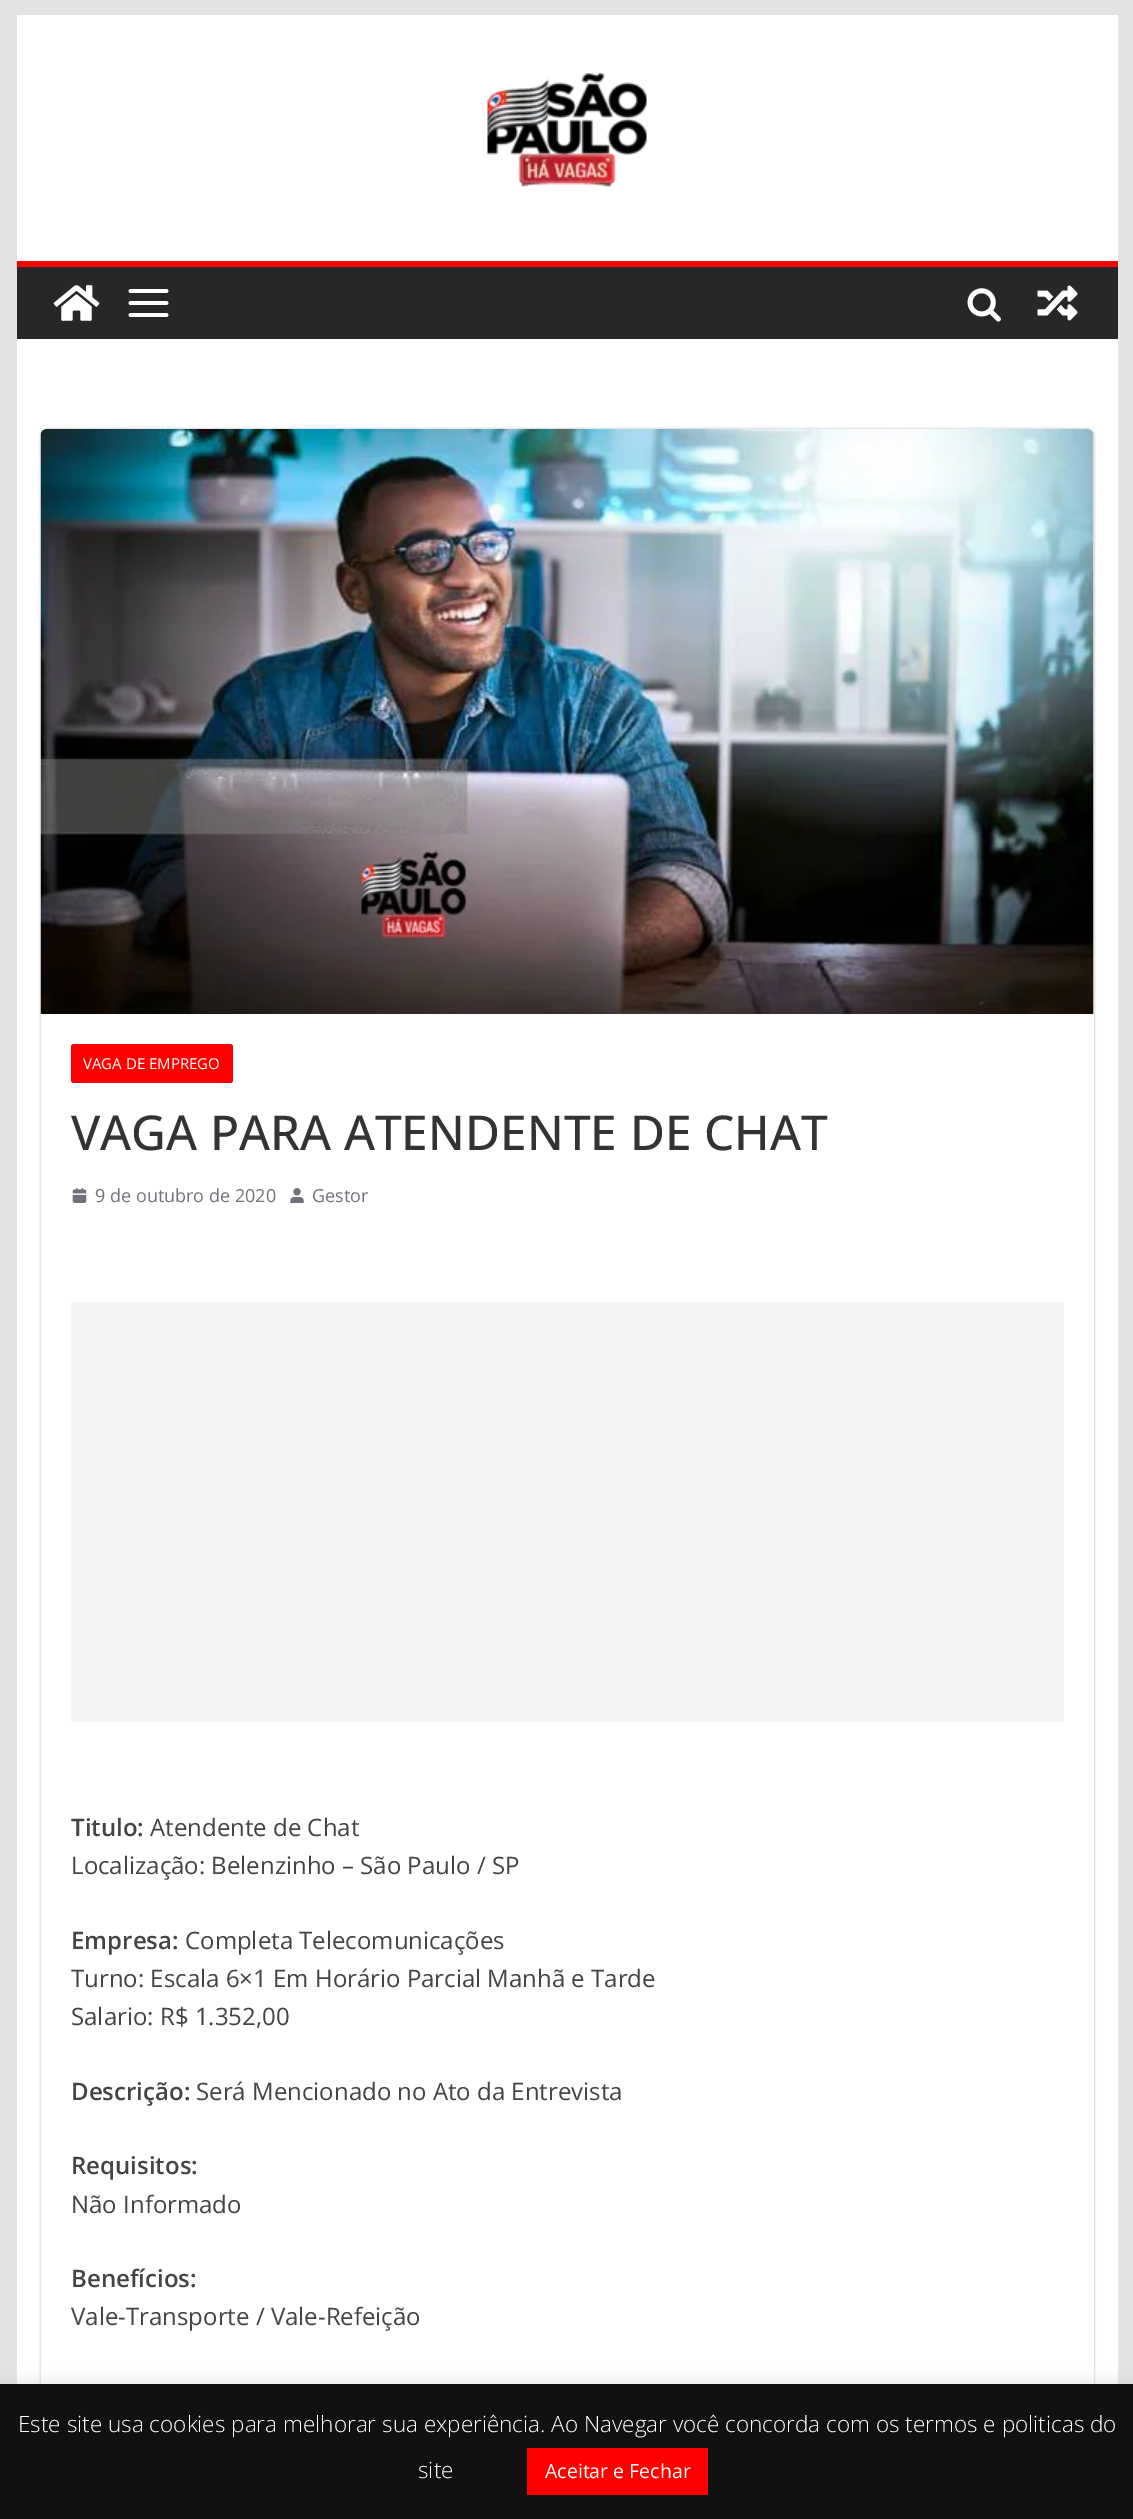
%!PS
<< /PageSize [1133 2519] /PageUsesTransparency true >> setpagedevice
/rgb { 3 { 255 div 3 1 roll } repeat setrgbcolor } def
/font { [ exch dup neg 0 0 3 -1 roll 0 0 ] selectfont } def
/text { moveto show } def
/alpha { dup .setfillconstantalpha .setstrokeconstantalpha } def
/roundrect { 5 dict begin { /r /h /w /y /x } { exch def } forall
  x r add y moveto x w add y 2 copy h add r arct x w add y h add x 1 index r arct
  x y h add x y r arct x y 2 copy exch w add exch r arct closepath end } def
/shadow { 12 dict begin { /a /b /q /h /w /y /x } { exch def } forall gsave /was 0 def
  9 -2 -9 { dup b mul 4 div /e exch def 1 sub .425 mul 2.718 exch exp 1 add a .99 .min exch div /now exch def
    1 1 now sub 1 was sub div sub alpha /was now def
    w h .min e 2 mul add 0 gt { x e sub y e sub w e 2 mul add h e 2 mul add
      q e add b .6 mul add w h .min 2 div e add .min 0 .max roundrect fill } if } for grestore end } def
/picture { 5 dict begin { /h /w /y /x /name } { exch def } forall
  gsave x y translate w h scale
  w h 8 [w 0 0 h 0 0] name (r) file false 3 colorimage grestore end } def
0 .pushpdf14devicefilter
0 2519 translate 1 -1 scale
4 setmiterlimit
228 228 231 rgb
0 0 1133 2519 rectfill
255 255 255 rgb
17 15 1101 246 rectfill
(img_01.rgb) 487 72 160 116 picture
39 39 42 rgb
17 267 1101 72 rectfill
255 0 0 rgb
17 261 1101 6 rectfill
(img_02.rgb) 53 285 47 36 picture
(img_03.rgb) 128 289 41 28 picture
(img_04.rgb) 967 288 34 34 picture
(img_05.rgb) 1037 285 41 36 picture
255 255 255 rgb
17 339 1101 2045 rectfill
gsave
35 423 moveto 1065 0 rlineto 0 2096 rlineto -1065 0 rlineto closepath 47 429 moveto 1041 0 rlineto 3.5 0 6 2.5 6 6 rcurveto 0 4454 rlineto 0 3.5 -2.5 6 -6 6 rcurveto -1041 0 rlineto -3.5 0 -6 -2.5 -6 -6 rcurveto 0 -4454 rlineto 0 -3.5 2.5 -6 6 -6 rcurveto closepath eoclip newpath
0 0 0 rgb
41 429 1053 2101 6 1.5 0.24 shadow
grestore
(img_06.rgb) 40 429 1054 585 picture
255 0 0 rgb
71 1044 162 39 3 roundrect fill
(img_07.rgb) 72 1188 15 15 picture
(img_08.rgb) 290 1188 14 15 picture
244 244 245 rgb
71 1302 993 420 rectfill
172 171 171 rgb
0 2382 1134 137 0 7.5 0.3 shadow
17 17 17 rgb
0 2384 1133 135 rectfill
255 0 0 rgb
527 2448 181 47 rectfill
/OpenSans-Regular 15 font
255 255 255 rgb
(VAGA DE EMPREGO) 83 1069 text
/OpenSans-Medium 48 font
51 51 51 rgb
(VAGA PARA ATENDENTE DE CHAT) 71 1150 text
/OpenSans-Regular 18 font
113 113 122 rgb
(9 de outubro de 2020) 95 1202 text
(Gestor) 312 1202 text
/OpenSans-SemiBold 24 font
68 68 68 rgb
(Titulo:) 71 1836 text
/OpenSans-Regular 24 font
(Atendente de Chat) 150 1836 text
(Localização: Belenzinho – São Paulo / SP) 71 1874 text
/OpenSans-SemiBold 24 font
(Empresa:) 71 1949 text
/OpenSans-Regular 24 font
(Completa Telecomunicações) 185 1949 text
(Turno: Escala 6×1 Em Horário Parcial Manhã e Tarde) 71 1987 text
(Salario: R$ 1.352,00) 71 2025 text
/OpenSans-SemiBold 24 font
(Descrição:) 71 2100 text
/OpenSans-Regular 24 font
(Será Mencionado no Ato da Entrevista) 196 2100 text
/OpenSans-SemiBold 24 font
(Requisitos:) 71 2174 text
/OpenSans-Regular 24 font
(Não Informado) 71 2213 text
/OpenSans-SemiBold 24 font
(Benefícios:) 71 2287 text
/OpenSans-Regular 24 font
(Vale-Transporte / Vale-Refeição) 71 2325 text
/OpenSans-Light 22.5 font
255 255 255 rgb
(Este site usa cookies para melhorar sua experiência. Ao Navegar você concorda com os termos e politicas do) 18 2432 text
(site) 418 2478 text
/OpenSans-Regular 19.5 font
(Aceitar e Fechar) 545 2478 text
.poppdf14devicefilter showpage
